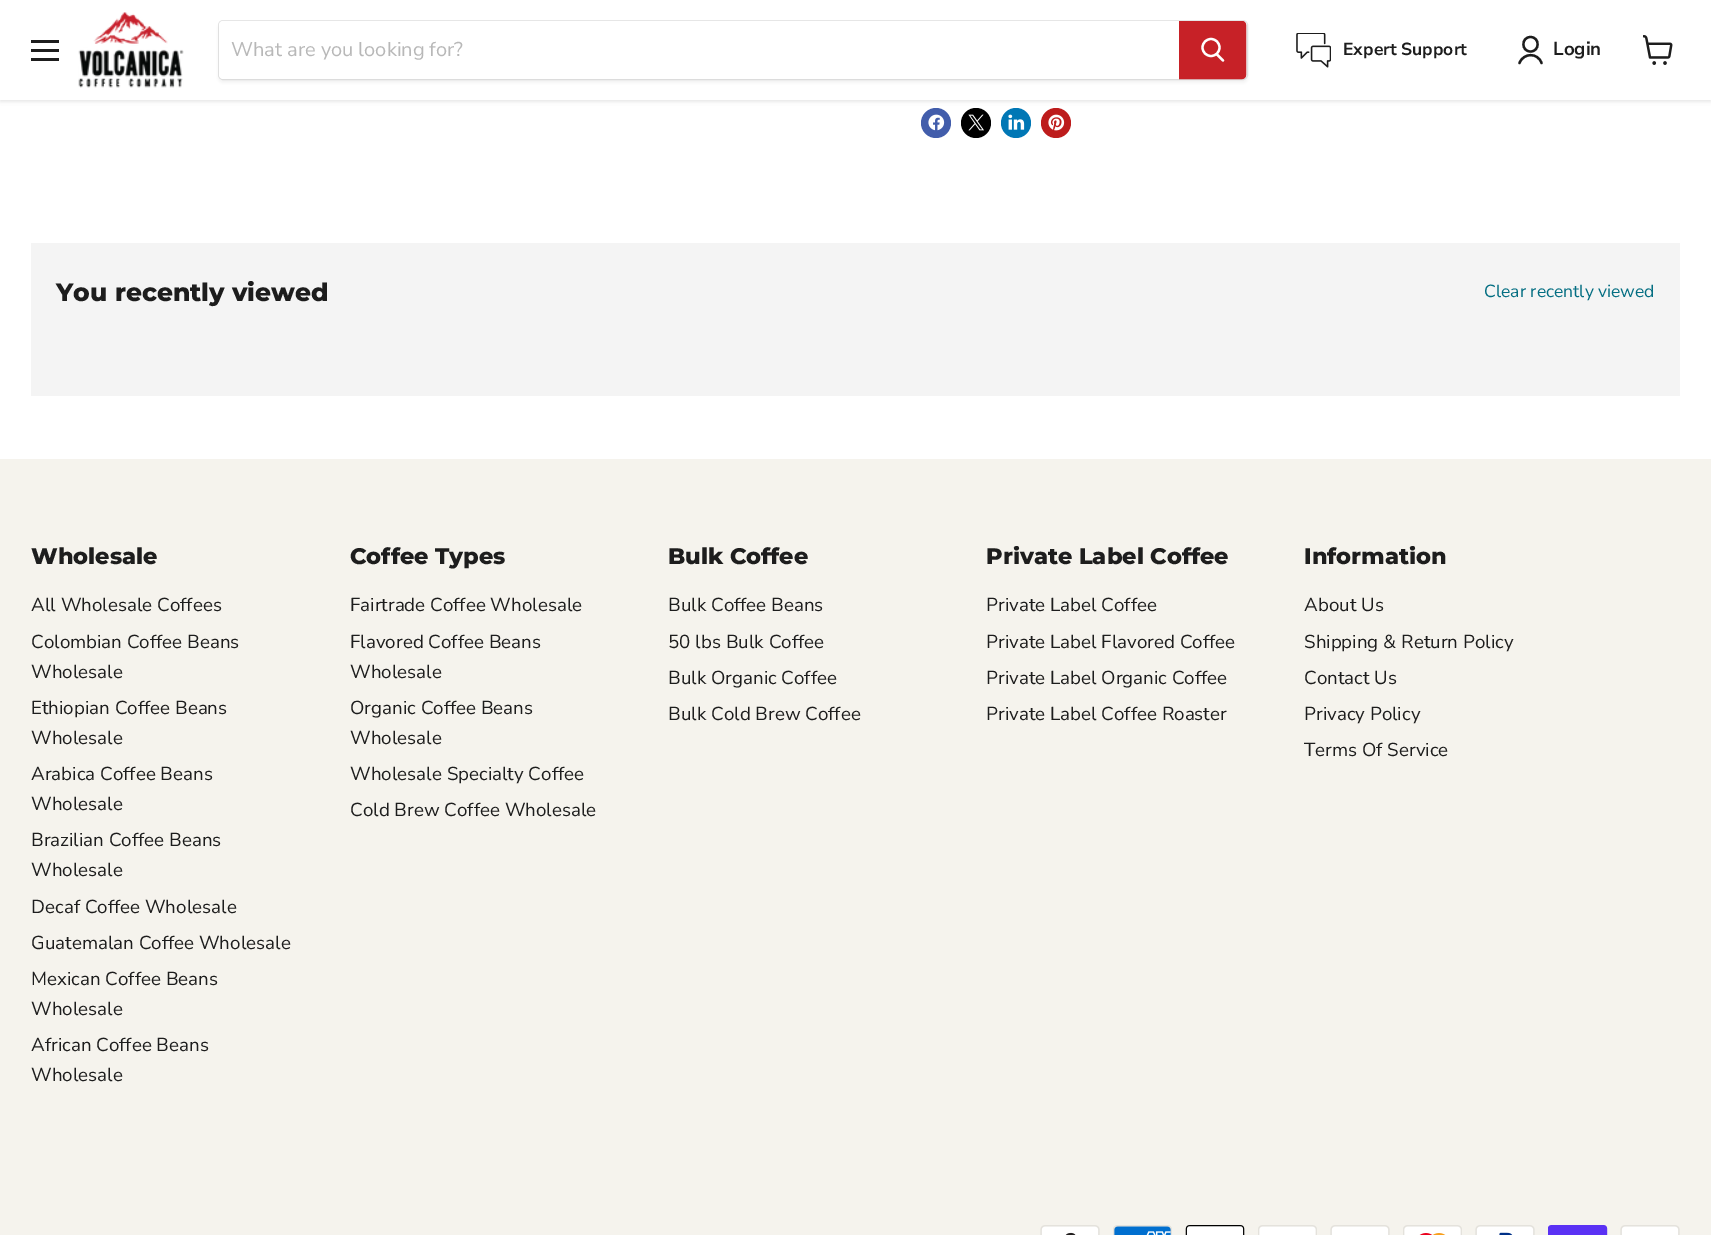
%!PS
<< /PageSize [1711 1235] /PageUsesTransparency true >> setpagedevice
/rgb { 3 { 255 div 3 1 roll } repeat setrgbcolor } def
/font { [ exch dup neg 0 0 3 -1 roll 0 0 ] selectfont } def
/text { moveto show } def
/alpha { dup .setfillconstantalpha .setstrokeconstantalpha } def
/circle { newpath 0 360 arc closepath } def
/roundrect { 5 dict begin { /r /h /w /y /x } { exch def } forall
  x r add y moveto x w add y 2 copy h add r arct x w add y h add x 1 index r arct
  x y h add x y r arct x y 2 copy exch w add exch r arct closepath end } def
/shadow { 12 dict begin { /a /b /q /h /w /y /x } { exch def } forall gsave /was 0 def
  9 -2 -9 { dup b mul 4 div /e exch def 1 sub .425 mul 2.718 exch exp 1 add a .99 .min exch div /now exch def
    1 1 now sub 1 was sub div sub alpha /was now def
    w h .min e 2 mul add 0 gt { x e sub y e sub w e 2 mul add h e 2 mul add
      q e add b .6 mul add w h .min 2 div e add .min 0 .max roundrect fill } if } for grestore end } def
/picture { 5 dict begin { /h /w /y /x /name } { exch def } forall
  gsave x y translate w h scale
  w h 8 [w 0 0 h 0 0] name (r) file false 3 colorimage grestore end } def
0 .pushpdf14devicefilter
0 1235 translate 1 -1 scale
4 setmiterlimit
255 255 255 rgb
0 0 1711 1235 rectfill
66 93 171 rgb
936 123 15 circle fill
0 0 0 rgb
976 123 15 circle fill
0 119 181 rgb
1016 123 15 circle fill
189 28 28 rgb
1056 123 15 circle fill
128 128 128 rgb
0 1 1711 100 0 2.5 0.25 shadow
255 255 255 rgb
0 0 1711 100 rectfill
29 29 29 rgb
31 40 28 3 rectfill
31 49 28 3 rectfill
31 58 28 3 rectfill
(img_01.rgb) 78 12 106 76 picture
128 128 128 rgb
218 23 1030 60 5 2 0.11 shadow
0.2 alpha
218.5 20.5 1029 59 4.5 roundrect stroke
1 alpha
255 255 255 rgb
223 21 moveto 956 0 rlineto 0 58 rlineto -956 0 rlineto -2 0 -4 -2 -4 -4 rcurveto 0 -50 rlineto 0 -2 2 -4 4 -4 rcurveto closepath fill
199 33 39 rgb
1179.5 21.5 moveto 62.5 0 rlineto 2 0 3.5 1.5 3.5 3.5 rcurveto 0 50 rlineto 0 2 -1.5 3.5 -3.5 3.5 rcurveto -62.5 0 rlineto closepath gsave fill grestore
stroke
255 255 255 rgb
2.2 setlinewidth
1 setlinecap
1223 60.5 moveto -6 -6 rlineto stroke
0 setlinecap
1211 47.5 8.5 circle stroke
(img_02.rgb) 1296 33 35 35 picture
29 29 29 rgb
2.3 setlinewidth
1 setlinecap
1 setlinejoin
1530.5 51.5 moveto 9.5 0 9.5 -14.5 0 -14.5 rcurveto -9.5 0 -9.5 14.5 0 14.5 rcurveto closepath 1541.5 63 moveto -3.5 -10.5 -18 -10.5 -22 0 rcurveto stroke
(img_03.rgb) 1643 35 30 30 picture
(img_04.rgb) 928 114 17 17 picture
(img_05.rgb) 968 114 16 17 picture
(img_06.rgb) 1008 114 17 16 picture
(img_07.rgb) 1048 114 17 17 picture
244 244 244 rgb
31 243 1649 153 rectfill
245 243 237 rgb
0 459 1711 776 rectfill
(img_08.rgb) 1040 1225 60 10 picture
(img_09.rgb) 1113 1225 59 10 picture
(img_10.rgb) 1185 1225 60 10 picture
(img_11.rgb) 1258 1225 59 10 picture
(img_12.rgb) 1330 1225 60 10 picture
(img_13.rgb) 1403 1225 59 10 picture
(img_14.rgb) 1475 1225 60 10 picture
(img_15.rgb) 1548 1225 60 10 picture
(img_12.rgb) 1620 1225 60 10 picture
/NunitoSans-Regular 20 font
184 184 184 rgb
(What are you looking for?) 231 56 text
/NunitoSans-Bold 17.5 font
29 29 29 rgb
(Expert Support) 1343 55 text
/NunitoSans-Bold 18.75 font
(Login) 1553 55 text
/Montserrat-ExtraBold 25 font
(You recently viewed) 56 301 text
/NunitoSans-Regular 17.5 font
4 110 130 rgb
(Clear recently viewed) 1484 297 text
/Montserrat-ExtraBold 22.5 font
29 29 29 rgb
(Wholesale) 31 564 text
/NunitoSans-Regular 18.75 font
(All Wholesale Coffees) 31 611 text
(Colombian Coffee Beans) 31 648 text
(Wholesale) 31 678 text
(Ethiopian Coffee Beans) 31 714 text
(Wholesale) 31 744 text
(Arabica Coffee Beans) 31 780 text
(Wholesale) 31 810 text
(Brazilian Coffee Beans) 31 846 text
(Wholesale) 31 876 text
(Decaf Coffee Wholesale) 31 913 text
(Guatemalan Coffee Wholesale) 31 949 text
(Mexican Coffee Beans) 31 985 text
(Wholesale) 31 1015 text
(African Coffee Beans) 31 1051 text
(Wholesale) 31 1081 text
/Montserrat-ExtraBold 22.5 font
(Coffee Types) 350 564 text
/NunitoSans-Regular 18.75 font
(Fairtrade Coffee Wholesale) 350 611 text
(Flavored Coffee Beans) 350 648 text
(Wholesale) 350 678 text
(Organic Coffee Beans) 350 714 text
(Wholesale) 350 744 text
(Wholesale Specialty Coffee) 350 780 text
(Cold Brew Coffee Wholesale) 350 816 text
/Montserrat-ExtraBold 22.5 font
(Bulk Coffee) 668 564 text
/NunitoSans-Regular 18.75 font
(Bulk Coffee Beans) 668 611 text
(50 lbs Bulk Coffee) 668 648 text
(Bulk Organic Coffee) 668 684 text
(Bulk Cold Brew Coffee) 668 720 text
/Montserrat-ExtraBold 22.5 font
(Private Label Coffee) 986 564 text
/NunitoSans-Regular 18.75 font
(Private Label Coffee) 986 611 text
(Private Label Flavored Coffee) 986 648 text
(Private Label Organic Coffee) 986 684 text
(Private Label Coffee Roaster) 986 720 text
/Montserrat-ExtraBold 22.5 font
(Information) 1304 564 text
/NunitoSans-Regular 18.75 font
(About Us) 1304 611 text
(Shipping & Return Policy) 1304 648 text
(Contact Us) 1304 684 text
(Privacy Policy) 1304 720 text
(Terms Of Service) 1304 756 text
.poppdf14devicefilter showpage
